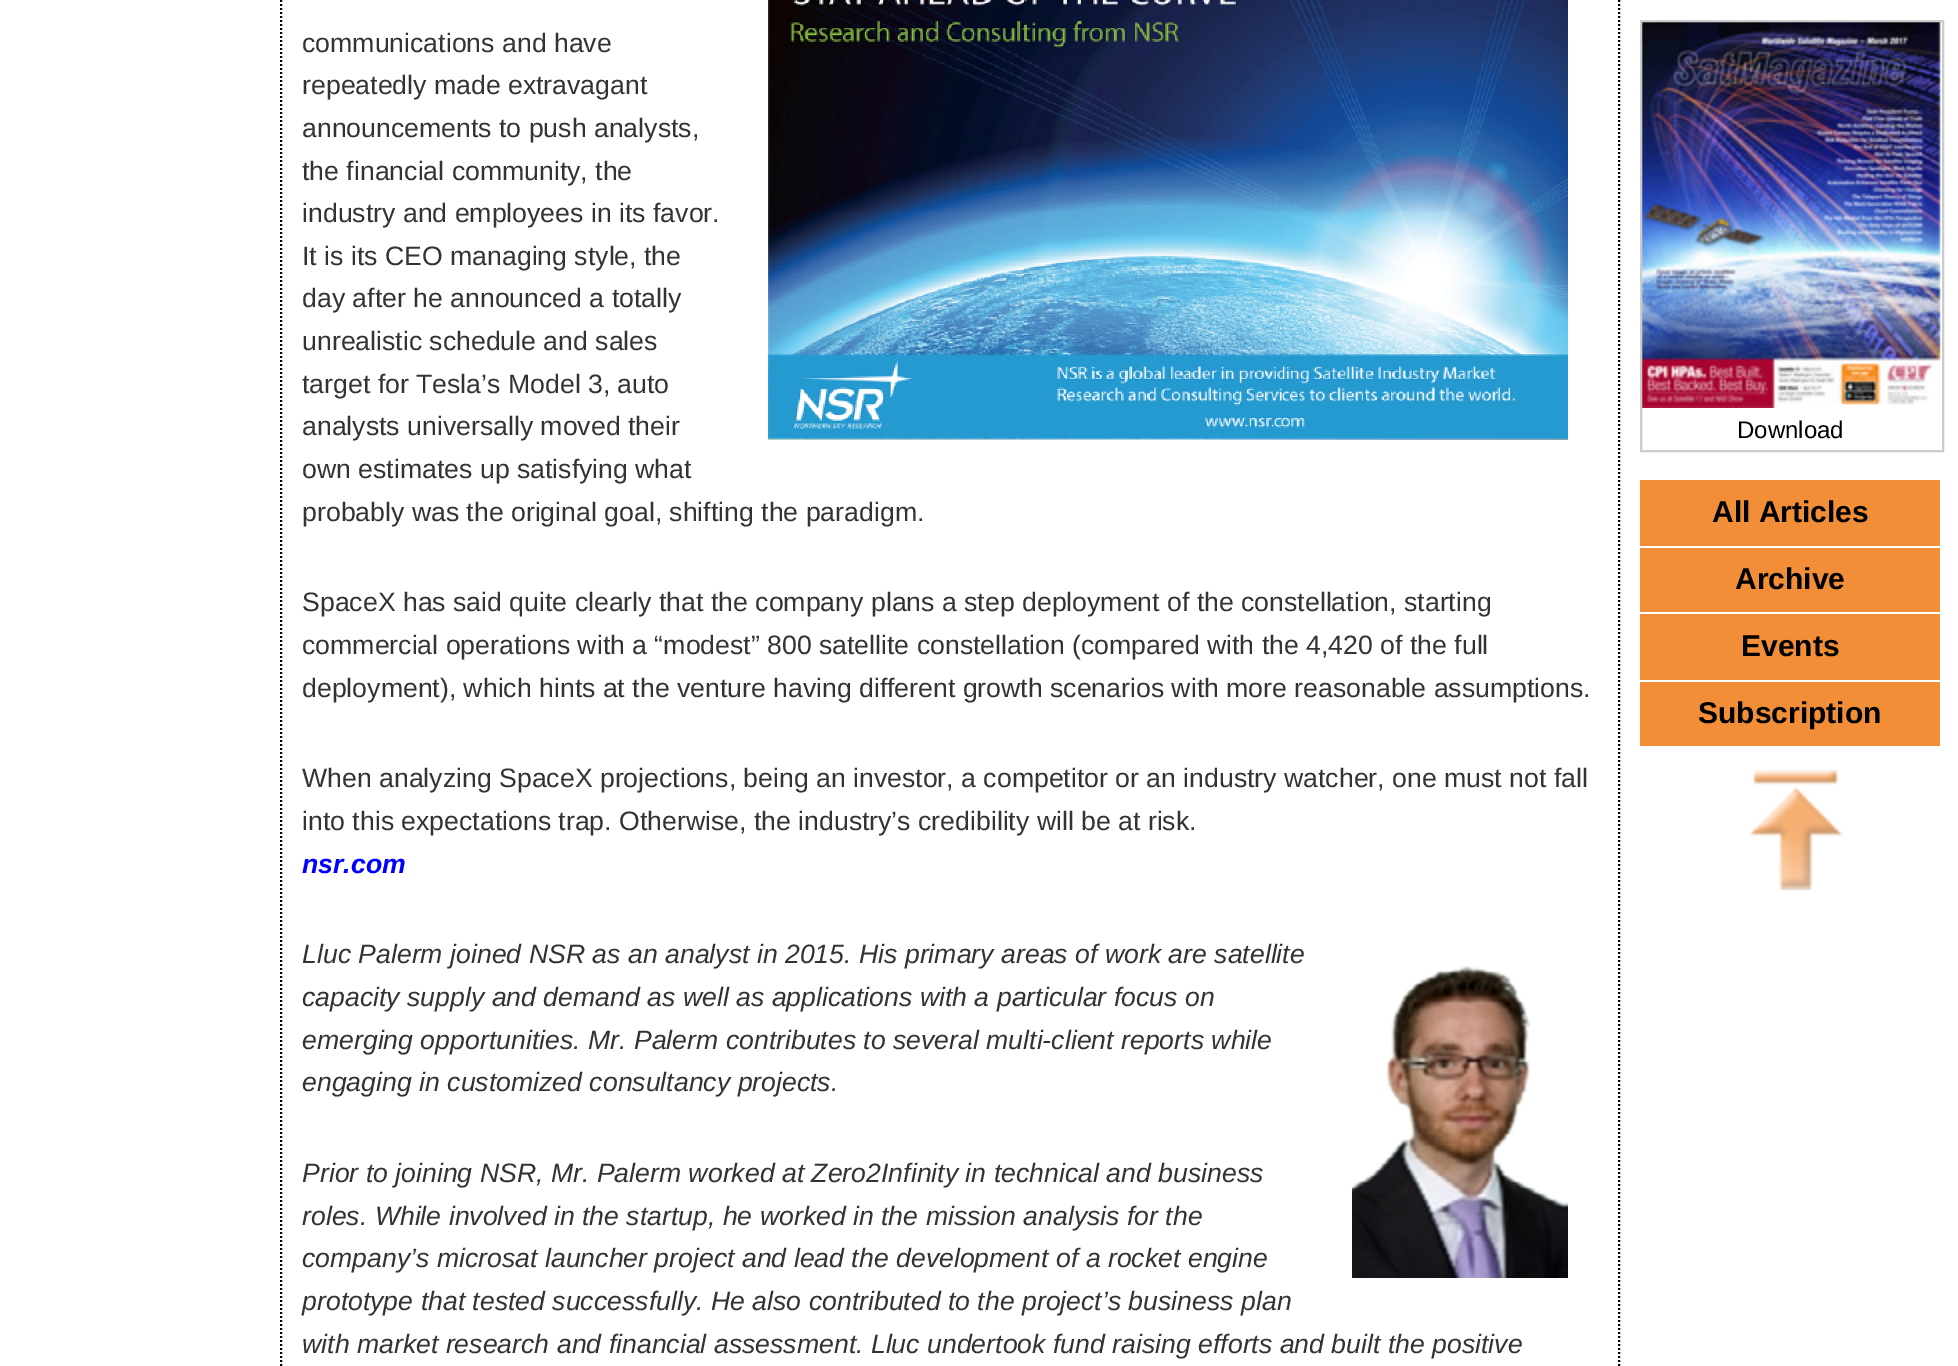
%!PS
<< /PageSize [1958 1366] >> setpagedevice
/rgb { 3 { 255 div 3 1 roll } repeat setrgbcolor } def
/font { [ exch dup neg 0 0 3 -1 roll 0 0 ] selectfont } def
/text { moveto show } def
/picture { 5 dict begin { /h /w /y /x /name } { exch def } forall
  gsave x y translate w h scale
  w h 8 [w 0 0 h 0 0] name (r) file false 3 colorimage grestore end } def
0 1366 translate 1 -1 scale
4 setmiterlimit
255 255 255 rgb
0 0 1958 1366 rectfill
0 0 0 rgb
2 setlinewidth
[2 2] 0 setdash
1619 -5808 moveto 0 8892 rlineto stroke
281 -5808 moveto 0 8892 rlineto stroke
(img_01.rgb) 768 0 800 440 picture
(img_02.rgb) 1352 965 216 313 picture
(img_03.rgb) 1642 22 299 386 picture
204 204 204 rgb
[] 0 setdash
1641 21 302 430 rectstroke
242 142 55 rgb
1640 480 300 66 rectfill
1640 548 300 64 rectfill
1640 614 300 66 rectfill
1640 682 300 64 rectfill
(img_04.rgb) 1749 769 95 122 picture
/LiberationSans-Regular 26.65 font
51 51 51 rgb
(communications and have) 302 52 text
(repeatedly made extravagant) 302 94 text
(announcements to push analysts,) 302 137 text
(the financial community, the) 302 180 text
(industry and employees in its favor.) 302 222 text
(It is its CEO managing style, the) 302 265 text
(day after he announced a totally) 302 307 text
(unrealistic schedule and sales) 302 350 text
(target for Tesla’s Model 3, auto) 302 393 text
(analysts universally moved their) 302 435 text
(own estimates up satisfying what) 302 478 text
(probably was the original goal, shifting the paradigm.) 302 521 text
(SpaceX has said quite clearly that the company plans a step deployment of the constellation, starting) 302 611 text
(commercial operations with a “modest” 800 satellite constellation \(compared with the 4,420 of the full) 302 654 text
(deployment\), which hints at the venture having different growth scenarios with more reasonable assumptions.) 302 697 text
(When analyzing SpaceX projections, being an investor, a competitor or an industry watcher, one must not fall) 302 787 text
(into this expectations trap. Otherwise, the industry’s credibility will be at risk.) 302 830 text
/LiberationSans-BoldItalic 26.65 font
0 0 255 rgb
(nsr.com) 302 873 text
/LiberationSans-Italic 26.65 font
51 51 51 rgb
(Lluc Palerm joined NSR as an analyst in 2015. His primary areas of work are satellite) 302 963 text
(capacity supply and demand as well as applications with a particular focus on) 302 1006 text
(emerging opportunities. Mr. Palerm contributes to several multi-client reports while) 302 1049 text
(engaging in customized consultancy projects.) 302 1091 text
(Prior to joining NSR, Mr. Palerm worked at Zero2Infinity in technical and business) 302 1182 text
(roles. While involved in the startup, he worked in the mission analysis for the) 302 1225 text
(company’s microsat launcher project and lead the development of a rocket engine) 302 1267 text
(prototype that tested successfully. He also contributed to the project’s business plan) 302 1310 text
(with market research and financial assessment. Lluc undertook fund raising efforts and built the positive) 302 1353 text
/LiberationSans-Regular 24 font
0 0 0 rgb
(Download) 1737 438 text
/LiberationSans-Bold 30 font
(All Articles) 1712 522 text
(Archive) 1735 589 text
(Events) 1741 656 text
(Subscription) 1698 723 text
showpage
